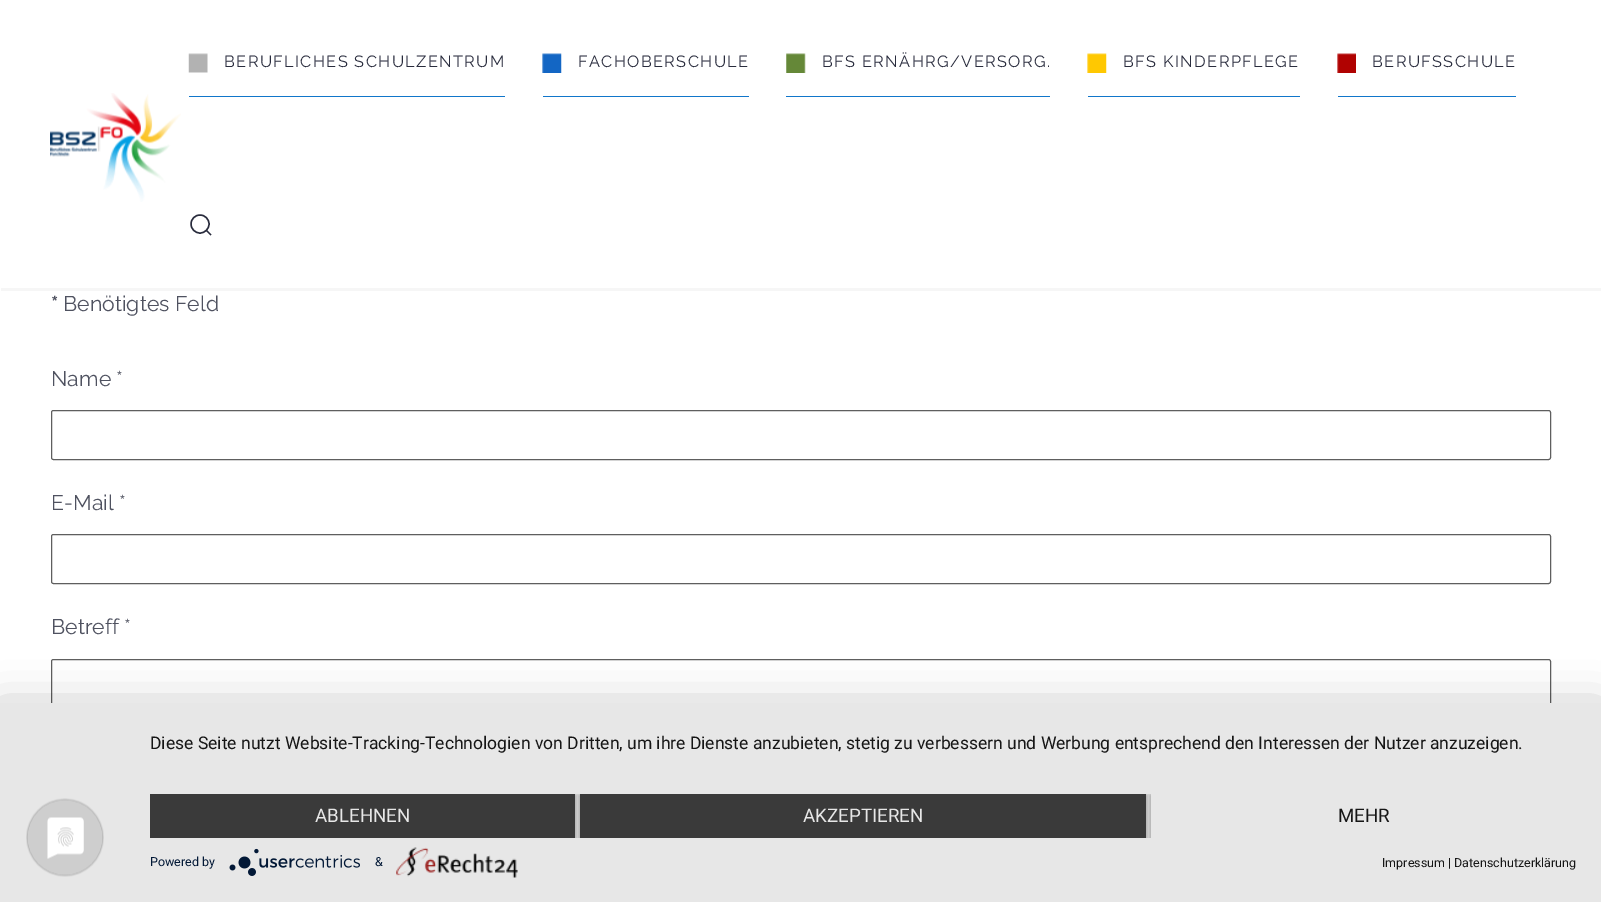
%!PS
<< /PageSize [1601 902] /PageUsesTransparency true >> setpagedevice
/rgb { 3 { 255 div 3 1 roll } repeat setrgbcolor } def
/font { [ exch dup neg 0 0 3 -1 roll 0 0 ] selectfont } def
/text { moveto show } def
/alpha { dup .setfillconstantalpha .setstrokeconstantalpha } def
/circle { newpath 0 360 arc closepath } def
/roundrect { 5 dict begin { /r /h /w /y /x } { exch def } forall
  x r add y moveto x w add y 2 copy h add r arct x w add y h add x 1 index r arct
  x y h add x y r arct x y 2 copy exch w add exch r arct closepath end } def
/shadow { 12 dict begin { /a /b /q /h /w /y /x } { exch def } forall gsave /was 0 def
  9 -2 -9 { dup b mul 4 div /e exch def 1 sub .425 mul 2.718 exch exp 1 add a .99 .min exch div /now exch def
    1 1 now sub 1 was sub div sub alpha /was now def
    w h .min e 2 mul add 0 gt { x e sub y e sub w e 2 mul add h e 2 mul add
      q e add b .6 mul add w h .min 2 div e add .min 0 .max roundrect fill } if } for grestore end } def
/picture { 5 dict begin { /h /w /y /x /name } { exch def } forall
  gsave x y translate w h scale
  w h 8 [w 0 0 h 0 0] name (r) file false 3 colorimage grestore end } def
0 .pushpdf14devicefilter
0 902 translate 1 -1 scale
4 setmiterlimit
255 255 255 rgb
0 0 1601 902 rectfill
246 246 246 rgb
1 288 moveto 0 3 rlineto 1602 0 rlineto 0 -287 rlineto -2 0 rlineto 0 284 rlineto closepath fill
(img_01.rgb) 188 53 20 20 picture
17 118 202 rgb
189 96 316 1 rectfill
(img_02.rgb) 542 53 20 20 picture
543 96 206 1 rectfill
(img_03.rgb) 786 53 20 20 picture
786 96 264 1 rectfill
(img_04.rgb) 1087 53 20 20 picture
1088 96 212 1 rectfill
(img_05.rgb) 1337 53 19 20 picture
1338 96 178 1 rectfill
41 44 61 rgb
1.4 setlinewidth
200 224 9 circle stroke
206 230 moveto 5 5 rlineto closepath stroke
(img_06.rgb) 50 93 131 109 picture
94 94 94 rgb
1 setlinewidth
51.5 410.5 1499 49 2 roundrect stroke
51.5 534.5 1499 49 2 roundrect stroke
51.5 659.5 1499 49 2 roundrect stroke
0 0 0 rgb
0 710 1601 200 0 22.5 0.3 shadow
231 231 231 rgb
0 703 1601 199 rectfill
(img_07.rgb) 26 798 78 79 picture
(img_09.rgb) 396 847 122 31 picture
gsave
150 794 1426 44 rectclip
0 0 0 rgb
150 795 425 44 0 2.5 0.4 shadow
grestore
58 58 58 rgb
150 794 425 44 rectfill
gsave
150 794 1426 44 rectclip
0 0 0 rgb
580 795 566 44 0 2.5 0.4 shadow
grestore
580 794 566 44 rectfill
gsave
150 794 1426 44 rectclip
0 0 0 rgb
1151 795 425 44 0 2.5 0.4 shadow
grestore
231 231 231 rgb
1151 794 425 44 rectfill
(img_08.rgb) 229 848 131 28 picture
/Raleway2-Thin 16.25 font
41 44 61 rgb
224 67 moveto 1.4 0 (BERUFLICHES SCHULZENTRUM) ashow
578 67 moveto 1.4 0 (FACHOBERSCHULE) ashow
822 67 moveto 1.4 0 (BFS ERNÄHRG/VERSORG.) ashow
1123 67 moveto 1.4 0 (BFS KINDERPFLEGE) ashow
1372 67 moveto 1.4 0 (BERUFSSCHULE) ashow
/Raleway-Thin 21.25 font
79 82 96 rgb
(*) 51 311 text
/Raleway2-Thin 21.25 font
(Benötigtes Feld) 63 311 text
(Name *) 51 386 text
(E-Mail *) 51 510 text
(Betreff *) 51 634 text
/Roboto-Regular 17.5 font
22 22 22 rgb
(Diese Seite nutzt Website-Tracking-Technologien von Dritten, um ihre Dienste anzubieten, stetig zu verbessern und Werbung entsprechend den Interessen der Nutzer anzuzeigen.) 150 749 text
/Roboto-Regular 18.75 font
231 231 231 rgb
(ABLEHNEN) 315 822 text
(AKZEPTIEREN) 803 822 text
22 22 22 rgb
(MEHR) 1338 822 text
/Roboto-Regular 12.5 font
2 24 54 rgb
(Powered by) 150 866 text
(&) 375 866 text
22 22 22 rgb
(Impressum | Datenschutzerklärung) 1382 867 text
.poppdf14devicefilter showpage
